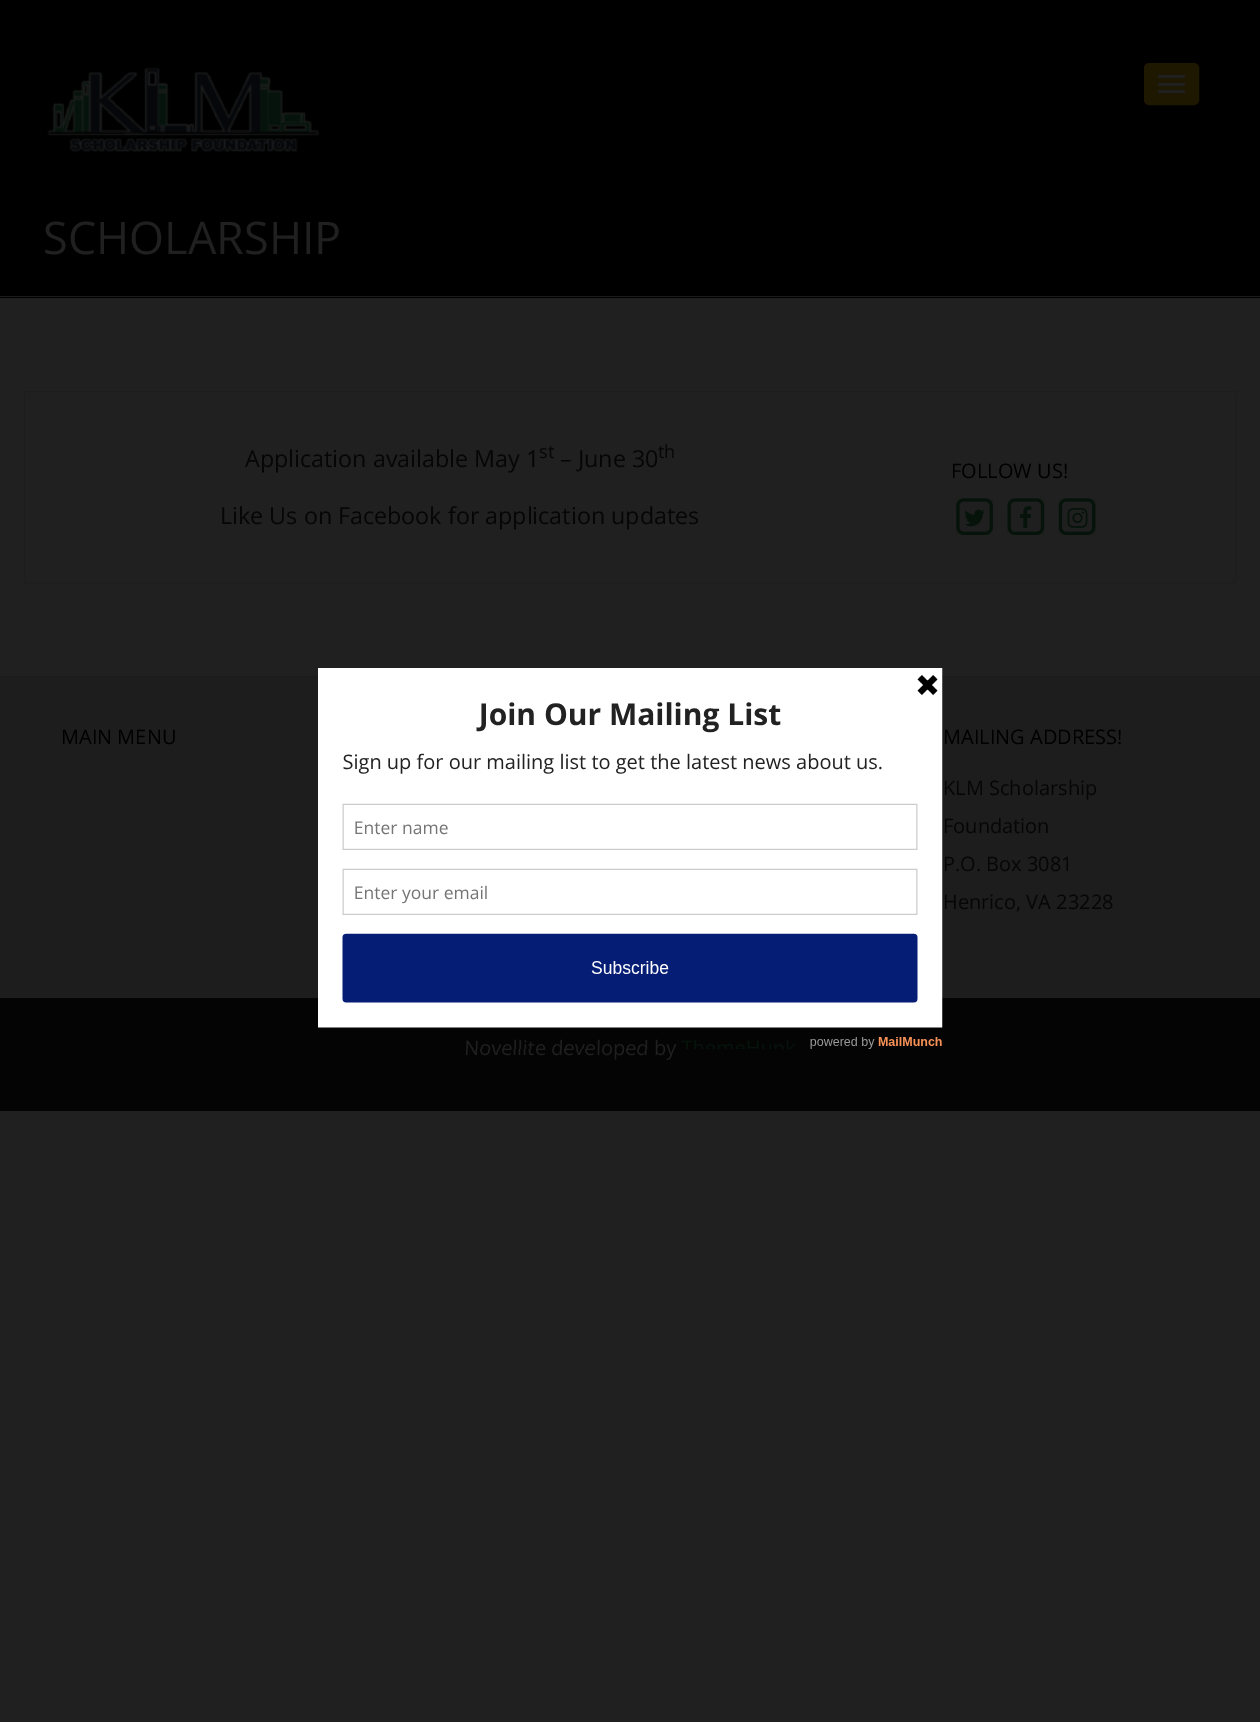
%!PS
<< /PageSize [1260 1722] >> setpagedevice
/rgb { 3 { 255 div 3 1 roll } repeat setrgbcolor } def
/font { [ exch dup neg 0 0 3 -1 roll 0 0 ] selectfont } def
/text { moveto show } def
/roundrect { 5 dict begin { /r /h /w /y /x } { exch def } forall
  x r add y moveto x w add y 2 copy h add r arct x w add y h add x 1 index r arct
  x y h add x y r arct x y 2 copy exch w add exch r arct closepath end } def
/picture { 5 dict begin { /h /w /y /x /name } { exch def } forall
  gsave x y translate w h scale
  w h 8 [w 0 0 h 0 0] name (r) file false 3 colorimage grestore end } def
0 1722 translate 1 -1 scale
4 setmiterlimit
32 32 32 rgb
0 0 1260 1722 rectfill
0 0 0 rgb
0 0 1260 298 rectfill
(img_01.rgb) 47 67 272 85 picture
31 24 0 rgb
1144.5 63.5 54 41 4.5 roundrect gsave fill grestore
stroke
32 32 32 rgb
1158 75 27 3 1.5 roundrect fill
1158 83 27 3 1.5 roundrect fill
1158 90 27 3 1.5 roundrect fill
27 27 27 rgb
0 296 1260 1 rectfill
29 29 29 rgb
24.5 391.5 1211 191 rectstroke
(img_02.rgb) 956 498 37 37 picture
(img_03.rgb) 964 509 21 18 picture
(img_04.rgb) 1007 498 38 37 picture
(img_05.rgb) 1020 506 12 22 picture
(img_06.rgb) 1058 498 38 37 picture
(img_07.rgb) 1067 507 21 21 picture
0 677 1260 321 rectfill
27 27 27 rgb
0 676 1260 1 rectfill
4 4 5 rgb
0 998 1260 113 rectfill
/OpenSans-Regular 45 font
32 32 32 rgb
(SCHOLARSHIP) 43 254 text
/OpenSans-Regular 23.3 font
6 6 6 rgb
(Application available May 1) 245 467 text
/OpenSans-Regular 18 font
(st) 539 458 text
/OpenSans-Regular 23.3 font
(– June 30) 560 467 text
/OpenSans-Regular 18 font
(th) 658 458 text
/OpenSans-Regular 23.3 font
(Like Us on Facebook for application updates) 220 524 text
/OpenSans-Regular 20 font
0 0 0 rgb
(FOLLOW US!) 951 478 text
(MAIN MENU) 61 744 text
(MAILING ADDRESS!) 943 744 text
6 6 6 rgb
(KLM Scholarship) 943 795 text
(Foundation) 943 833 text
(P.O. Box 3081) 943 871 text
(Henrico, VA 23228) 943 909 text
32 32 32 rgb
(Novellite developed by) 464 1055 text
(img_08.rgb) 318 668 625 381 picture
showpage
